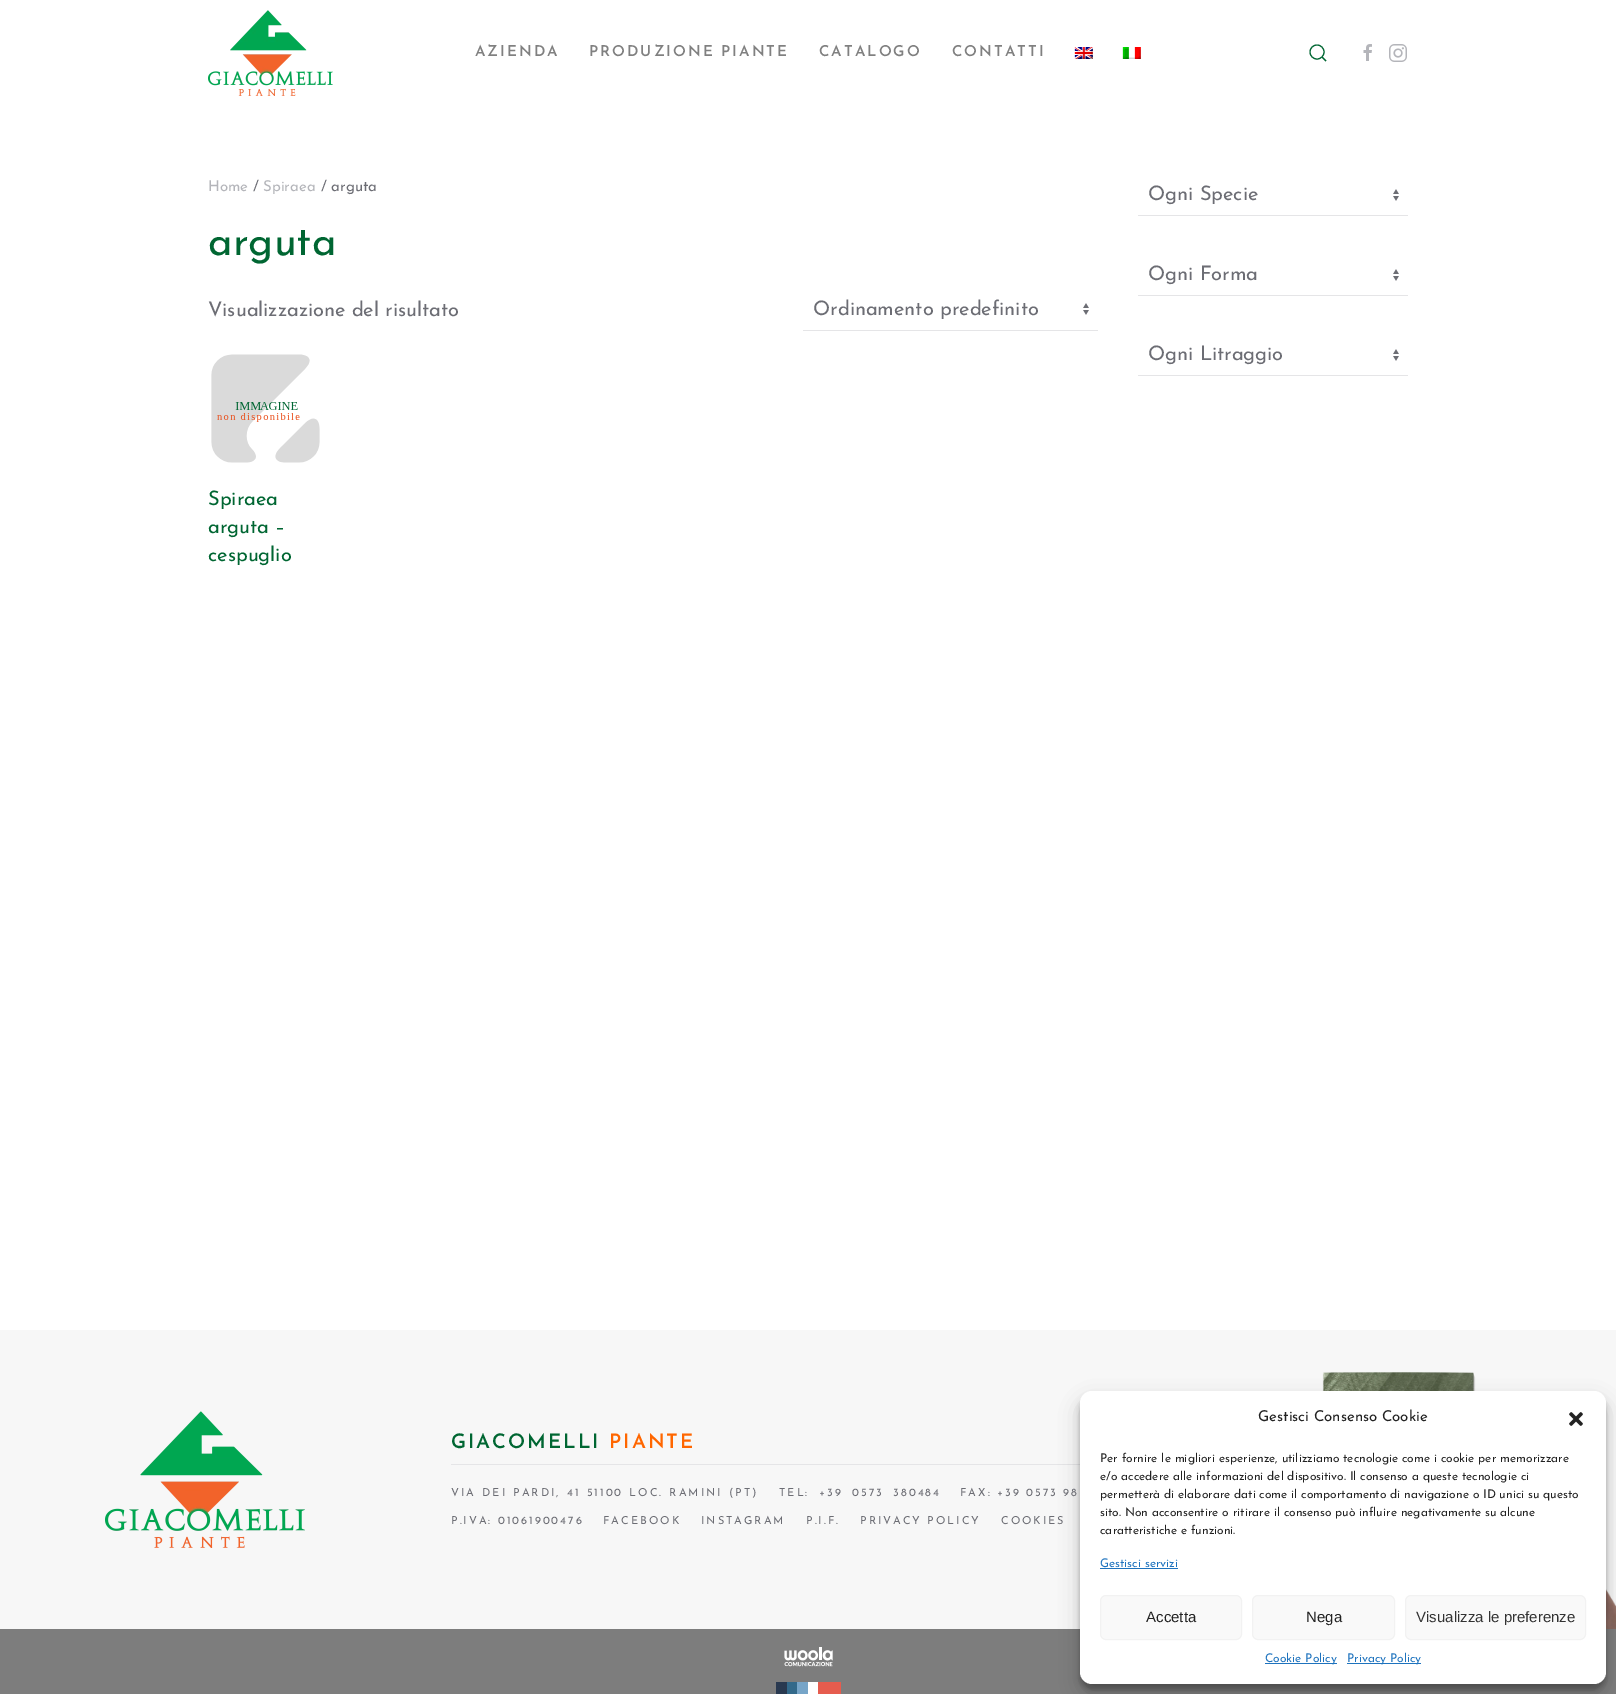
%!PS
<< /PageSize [1616 1694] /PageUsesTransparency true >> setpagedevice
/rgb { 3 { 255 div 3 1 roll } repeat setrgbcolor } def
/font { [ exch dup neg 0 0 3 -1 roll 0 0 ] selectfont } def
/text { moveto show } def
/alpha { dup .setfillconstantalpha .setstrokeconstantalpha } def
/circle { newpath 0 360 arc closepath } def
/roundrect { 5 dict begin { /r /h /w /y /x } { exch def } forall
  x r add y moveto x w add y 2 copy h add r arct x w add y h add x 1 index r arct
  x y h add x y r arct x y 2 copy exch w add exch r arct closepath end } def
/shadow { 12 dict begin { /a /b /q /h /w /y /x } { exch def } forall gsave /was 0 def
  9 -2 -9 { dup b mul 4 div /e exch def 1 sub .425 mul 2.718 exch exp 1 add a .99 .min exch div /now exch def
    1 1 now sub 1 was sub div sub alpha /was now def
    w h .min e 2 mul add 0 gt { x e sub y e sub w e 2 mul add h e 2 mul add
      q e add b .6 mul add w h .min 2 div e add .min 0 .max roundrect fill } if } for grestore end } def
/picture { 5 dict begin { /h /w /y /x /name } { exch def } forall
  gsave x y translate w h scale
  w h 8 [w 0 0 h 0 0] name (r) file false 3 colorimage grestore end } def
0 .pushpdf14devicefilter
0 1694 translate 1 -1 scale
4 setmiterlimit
255 255 255 rgb
0 0 1616 1694 rectfill
(img_01.rgb) 208 10 125 86 picture
(img_02.rgb) 1074 47 19 12 picture
(img_03.rgb) 1122 47 19 12 picture
0 102 50 rgb
1.1 setlinewidth
1317 52 7 circle stroke
1322 57 moveto 4 4 rlineto closepath stroke
(img_04.rgb) 1363 44 9 17 picture
(img_05.rgb) 1389 44 18 18 picture
(img_06.rgb) 1083 303 6 12 picture
229 229 231 rgb
803 330 295 1 rectfill
(img_07.rgb) 211 354 109 109 picture
(img_06.rgb) 1393 189 6 12 picture
1138 215 270 1 rectfill
(img_06.rgb) 1393 269 6 12 picture
1138 295 270 1 rectfill
(img_06.rgb) 1393 349 6 12 picture
1138 375 270 1 rectfill
247 247 247 rgb
0 1330 1616 299 rectfill
(img_08.rgb) 105 1411 200 137 picture
229 229 231 rgb
451 1464 629 1 rectfill
(img_09.rgb) 1322 1372 294 257 picture
125 125 125 rgb
0 1629 1616 65 rectfill
(img_10.rgb) 776 1647 65 47 picture
0 0 0 rgb
1080 1397 526 293 12 3 0.23 shadow
1080 1401 526 293 12 10 0.19 shadow
255 255 255 rgb
1080 1391 526 293 12 roundrect fill
(img_11.rgb) 1569 1412 14 14 picture
30 115 190 rgb
1100 1568 78 1 rectfill
249 249 249 rgb
1100.5 1595.5 141 44 5.5 roundrect gsave fill grestore
242 242 242 rgb
1 setlinewidth
stroke
249 249 249 rgb
1252.5 1595.5 142 44 5.5 roundrect gsave fill grestore
242 242 242 rgb
stroke
249 249 249 rgb
1405.5 1595.5 180 44 5.5 roundrect gsave fill grestore
242 242 242 rgb
stroke
30 115 190 rgb
1265 1663 72 1 rectfill
1347 1663 74 1 rectfill
/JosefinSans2-Thin 15 font
128 128 128 rgb
475 56 moveto 2 0 (AZIENDA) ashow
589 56 moveto 2 0 (PRODUZIONE PIANTE) ashow
819 56 moveto 2 0 (CATALOGO) ashow
952 56 moveto 2 0 (CONTATTI) ashow
/JosefinSans-Thin 15 font
180 181 186 rgb
(Home) 208 191 text
108 109 116 rgb
(/) 253 191 text
180 181 186 rgb
(Spiraea) 263 191 text
108 109 116 rgb
(/ arguta) 321 191 text
/JosefinSans-Thin 42 font
0 102 50 rgb
(arguta) 208 255 text
/JosefinSans-Thin 20 font
108 109 116 rgb
(Visualizzazione del risultato) 208 316 text
(Ordinamento predefinito) 813 315 text
0 102 50 rgb
(Spiraea) 208 505 text
(arguta –) 208 533 text
(cespuglio) 208 561 text
108 109 116 rgb
(Ogni Specie) 1148 200 text
(Ogni Forma) 1148 280 text
(Ogni Litraggio) 1148 360 text
/JosefinSans2-Thin 20 font
0 102 50 rgb
451 1448 moveto 2 0 (GIACOMELLI) ashow
255 102 0 rgb
609 1448 moveto 2 0 (PIANTE) ashow
/JosefinSans-Thin 11 font
108 109 116 rgb
451 1496 moveto 0.75 0 32 2 0 (VIA DEI PARDI, 41 51100 LOC. RAMINI \(PT\)) awidthshow
779 1496 moveto 4 0 32 2 0 (TEL: +39 0573 380484) awidthshow
960 1496 moveto 2 0 (FAX: +39 0573 98) ashow
451 1524 moveto 2 0 (P.IVA: 01061900476) ashow
603 1524 moveto 2 0 (FACEBOOK) ashow
701 1524 moveto 2 0 (INSTAGRAM) ashow
806 1524 moveto 2 0 (P.I.F.) ashow
860 1524 moveto 2 0 (PRIVACY POLICY) ashow
1001 1524 moveto 2 0 (COOKIES) ashow
/JosefinSans-Thin 15 font
34 34 34 rgb
(Gestisci Consenso Cookie) 1258 1421 text
/JosefinSans-Thin 12 font
(Per fornire le migliori esperienze, utilizziamo tecnologie come i cookie per memorizzare) 1100 1462 text
(e/o accedere alle informazioni del dispositivo. Il consenso a queste tecnologie ci) 1100 1480 text
(permetterà di elaborare dati come il comportamento di navigazione o ID unici su questo) 1100 1498 text
(sito. Non acconsentire o ritirare il consenso può influire negativamente su alcune) 1100 1516 text
(caratteristiche e funzioni.) 1100 1534 text
30 115 190 rgb
(Gestisci servizi) 1100 1567 text
/LiberationSans-Regular 15 font
34 34 34 rgb
(Accetta) 1146 1622 text
(Nega) 1306 1622 text
51 51 51 rgb
(Visualizza le preferenze) 1416 1622 text
/JosefinSans-Thin 12 font
30 115 190 rgb
(Cookie Policy) 1265 1662 text
(Privacy Policy) 1347 1662 text
.poppdf14devicefilter showpage
